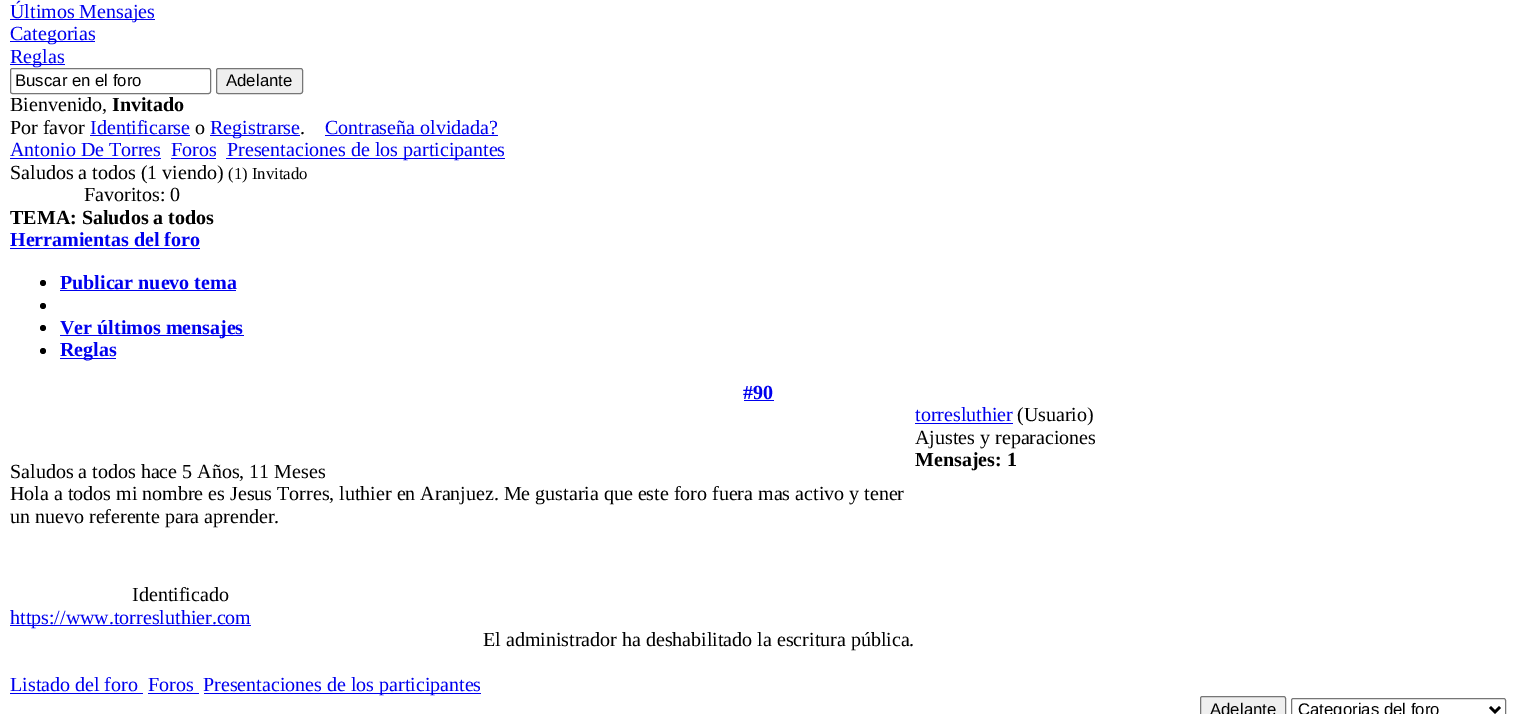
%!PS
<< /PageSize [1516 714] >> setpagedevice
/rgb { 3 { 255 div 3 1 roll } repeat setrgbcolor } def
/font { [ exch dup neg 0 0 3 -1 roll 0 0 ] selectfont } def
/text { moveto show } def
/circle { newpath 0 360 arc closepath } def
/roundrect { 5 dict begin { /r /h /w /y /x } { exch def } forall
  x r add y moveto x w add y 2 copy h add r arct x w add y h add x 1 index r arct
  x y h add x y r arct x y 2 copy exch w add exch r arct closepath end } def
0 714 translate 1 -1 scale
4 setmiterlimit
255 255 255 rgb
0 0 1516 714 rectfill
0 0 238 rgb
10 19 145 1 rectfill
10 41 85 1 rectfill
10 64 55 1 rectfill
118 118 118 rgb
10.5 68.5 200 25 2 roundrect stroke
239 239 239 rgb
216.5 68.5 86 25 2 roundrect gsave fill grestore
118 118 118 rgb
stroke
0 0 238 rgb
90 135 100 1 rectfill
210 135 90 1 rectfill
325 135 173 1 rectfill
10 158 151 1 rectfill
171 158 45 1 rectfill
226 158 279 1 rectfill
10 248 190 1 rectfill
0 0 0 rgb
43 283 3 circle fill
0 0 238 rgb
60 290 176 1 rectfill
0 0 0 rgb
43 306 3 circle fill
43 328 3 circle fill
0 0 238 rgb
60 335 184 1 rectfill
0 0 0 rgb
43 351 3 circle fill
0 0 238 rgb
60 358 56 1 rectfill
744 400 30 1 rectfill
915 423 98 1 rectfill
10 625 241 1 rectfill
10 693 133 1 rectfill
148 693 51 1 rectfill
204 693 277 1 rectfill
239 239 239 rgb
1200.5 696.5 85 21 2 roundrect gsave fill grestore
118 118 118 rgb
stroke
1291.5 698.5 214 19 2 roundrect stroke
0 0 0 rgb
2.5 setlinewidth
1490 707 moveto 5 5 rlineto 5 -5 rlineto stroke
/LiberationSerif-Regular 20 font
0 0 238 rgb
(Últimos Mensajes) 10 18 text
(Categorias) 10 40 text
(Reglas) 10 63 text
/LiberationSans-Regular 16.75 font
0 0 0 rgb
(Buscar en el foro) 15 86 text
(Adelante) 226 86 text
/LiberationSerif-Regular 20 font
(Bienvenido,) 10 111 text
/LiberationSerif-Bold 20 font
(Invitado) 112 111 text
/LiberationSerif-Regular 20 font
(Por favor) 10 134 text
0 0 238 rgb
(Identificarse) 90 134 text
0 0 0 rgb
(o) 195 134 text
0 0 238 rgb
(Registrarse) 210 134 text
0 0 0 rgb
(.) 300 134 text
0 0 238 rgb
(Contraseña olvidada?) 325 134 text
(Antonio De Torres) 10 156 text
(Foros) 171 156 text
(Presentaciones de los participantes) 227 156 text
0 0 0 rgb
(Saludos a todos \(1 viendo\)) 10 179 text
/LiberationSerif-Regular 16.75 font
(\(1\) Invitado) 228 179 text
/LiberationSerif-Regular 20 font
(Favoritos: 0) 84 201 text
/LiberationSerif-Bold 20 font
(TEMA: Saludos a todos) 10 224 text
0 0 238 rgb
(Herramientas del foro) 10 246 text
(Publicar nuevo tema) 60 289 text
(Ver últimos mensajes) 60 334 text
(Reglas) 60 356 text
(#90) 743 399 text
/LiberationSerif-Regular 20 font
(torresluthier) 915 421 text
0 0 0 rgb
(\(Usuario\)) 1017 421 text
(Ajustes y reparaciones) 915 444 text
/LiberationSerif-Bold 20 font
(Mensajes: 1) 915 466 text
/LiberationSerif-Regular 20 font
(Saludos a todos hace 5 Años, 11 Meses) 10 478 text
(Hola a todos mi nombre es Jesus Torres, luthier en Aranjuez. Me gustaria que este foro fuera mas activo y tener) 10 500 text
(un nuevo referente para aprender.) 10 523 text
(Identificado) 132 601 text
0 0 238 rgb
(https://www.torresluthier.com) 10 624 text
0 0 0 rgb
(El administrador ha deshabilitado la escritura pública.) 483 646 text
0 0 238 rgb
(Listado del foro) 10 691 text
(Foros) 148 691 text
(Presentaciones de los participantes) 203 691 text
/LiberationSans-Regular 16.75 font
0 0 0 rgb
(Adelante) 1210 715 text
(Categorias del foro) 1298 715 text
showpage
